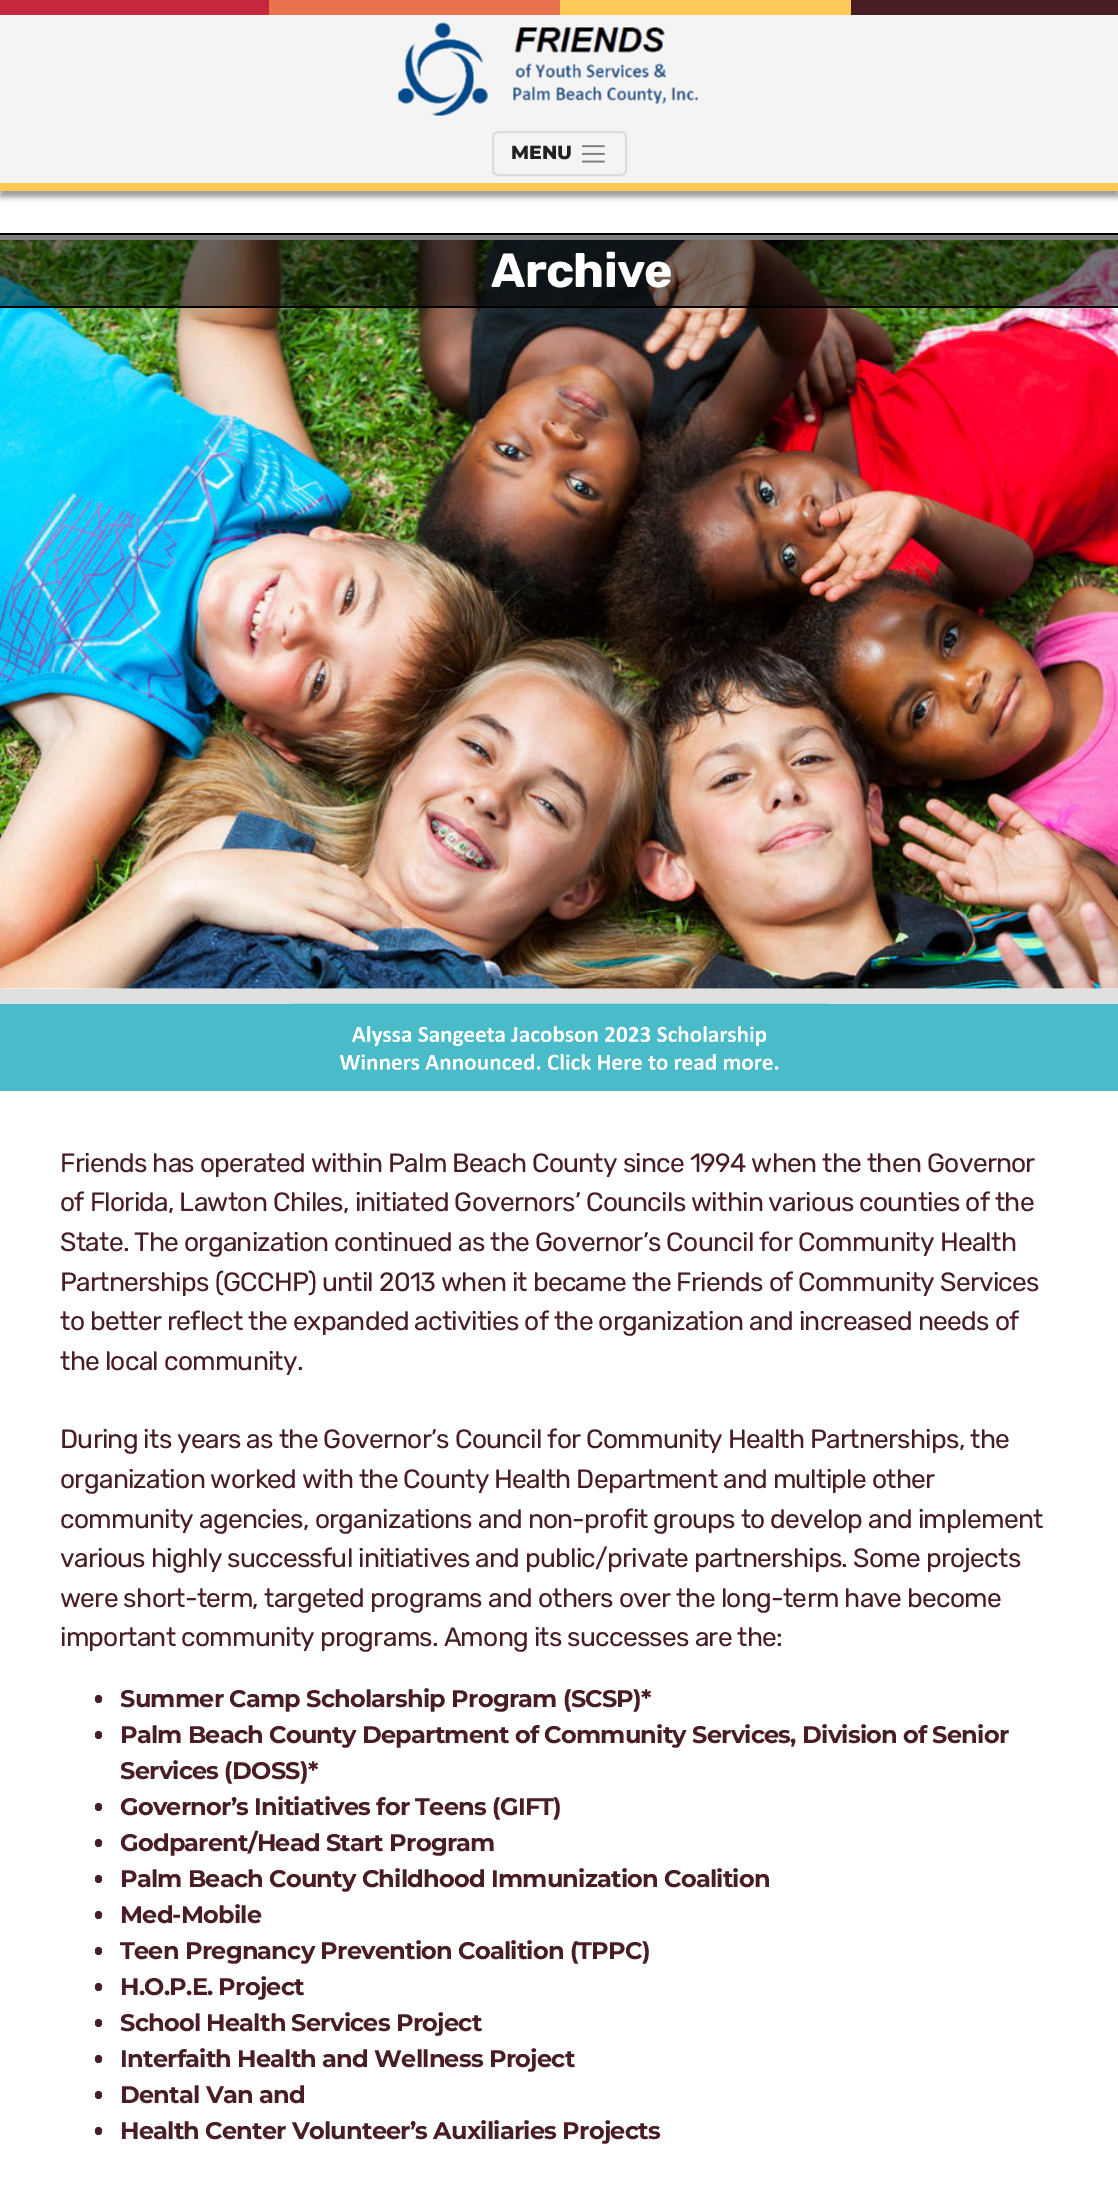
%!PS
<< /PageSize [1118 2197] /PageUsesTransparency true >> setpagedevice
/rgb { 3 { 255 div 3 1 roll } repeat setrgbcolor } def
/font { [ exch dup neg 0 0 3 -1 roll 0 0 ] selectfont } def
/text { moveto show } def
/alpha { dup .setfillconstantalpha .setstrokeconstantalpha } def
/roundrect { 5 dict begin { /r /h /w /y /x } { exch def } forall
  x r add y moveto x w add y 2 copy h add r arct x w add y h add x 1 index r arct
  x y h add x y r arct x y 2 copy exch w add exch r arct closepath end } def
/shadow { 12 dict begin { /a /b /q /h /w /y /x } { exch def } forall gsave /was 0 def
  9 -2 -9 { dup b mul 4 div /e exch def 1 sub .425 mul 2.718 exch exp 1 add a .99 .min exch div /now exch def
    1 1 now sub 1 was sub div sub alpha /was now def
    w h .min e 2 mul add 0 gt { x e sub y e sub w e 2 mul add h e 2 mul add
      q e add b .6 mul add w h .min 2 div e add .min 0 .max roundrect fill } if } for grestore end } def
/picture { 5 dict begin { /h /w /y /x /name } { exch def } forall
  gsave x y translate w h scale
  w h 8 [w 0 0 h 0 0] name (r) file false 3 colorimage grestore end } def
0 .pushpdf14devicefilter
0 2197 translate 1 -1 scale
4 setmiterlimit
255 255 255 rgb
0 0 1118 2197 rectfill
197 40 61 rgb
0 0 269 15 rectfill
233 114 76 rgb
269 0 291 15 rectfill
255 200 87 rgb
560 0 291 15 rectfill
72 29 36 rgb
851 0 267 15 rectfill
0 0 0 rgb
0 21 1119 176 0 3 0.4 shadow
244 244 244 rgb
0 15 1118 168 rectfill
255 200 87 rgb
0 183 1118 8 rectfill
(img_01.rgb) 397 22 301 94 picture
220 220 220 rgb
2 setlinewidth
493 132 133 43 5 roundrect stroke
(img_02.rgb) 581 145 24 18 picture
(img_03.rgb) 0 240 1118 749 picture
0.5 alpha
0 0 0 rgb
0 235 1118 71 rectfill
1 alpha
0 233 1118 2 rectfill
0 306 1118 2 rectfill
74 187 201 rgb
0 1004 1118 87 rectfill
224 224 224 rgb
0 989 1118 15 rectfill
(img_04.rgb) 291 1003 537 68 picture
72 29 36 rgb
95 1695 7 8 3.5 roundrect fill
95 1731 7 8 3.5 roundrect fill
95 1803 7 8 3.5 roundrect fill
95 1839 7 8 3.5 roundrect fill
95 1875 7 8 3.5 roundrect fill
95 1911 7 8 3.5 roundrect fill
95 1947 7 8 3.5 roundrect fill
95 1983 7 8 3.5 roundrect fill
95 2019 7 8 3.5 roundrect fill
95 2055 7 8 3.5 roundrect fill
95 2091 7 8 3.5 roundrect fill
95 2127 7 8 3.5 roundrect fill
/Montserrat-ExtraBold 19 font
34 34 34 rgb
(MENU) 511 159 text
/Rubik-Bold 48 font
255 255 255 rgb
491 287 moveto -0.75 0 (Archive) ashow
/Rubik-Regular 26.4 font
72 29 36 rgb
60 1172 moveto -0.75 0 (Friends has operated within Palm Beach County since 1994 when the then) ashow
927 1172 moveto -0.75 0 (Governor) ashow
60 1211 moveto -0.75 0 (of Florida, Lawton Chiles, initiated Governors’ Councils within various counties of the) ashow
60 1251 moveto -0.75 0 (State. The organization continued as the Governor’s Council for Community Health) ashow
60 1291 moveto -0.75 0 (Partnerships \(GCCHP\) until 2013 when it became the Friends of Community Services) ashow
60 1330 moveto -0.75 0 (to better reflect the expanded activities of the organization and increased needs of) ashow
60 1370 moveto -0.75 0 (the local community.) ashow
60 1448 moveto -0.75 0 (During its years as the Governor’s Council for Community Health) ashow
810 1448 moveto -0.75 0 (Partnerships, the) ashow
60 1488 moveto -0.75 0 (organization worked with the County Health Department and multiple other) ashow
60 1528 moveto -0.75 0 (community agencies, organizations and non-profit groups to develop and implement) ashow
60 1567 moveto -0.75 0 (various highly successful initiatives and public/private partnerships. Some projects) ashow
60 1607 moveto -0.75 0 (were short-term, targeted programs and others over the long-term have become) ashow
60 1646 moveto -0.75 0 (important community programs. Among its successes are the:) ashow
/Montserrat-Bold 24 font
120 1707 moveto -0.75 0 (Summer Camp Scholarship Program \(SCSP\)*) ashow
120 1743 moveto -0.75 0 (Palm Beach County Department of Community Services, Division of Senior) ashow
120 1779 moveto -0.75 0 (Services \(DOSS\)*) ashow
120 1815 moveto -0.75 0 (Governor’s Initiatives for Teens \(GIFT\)) ashow
120 1851 moveto -0.75 0 (Godparent/Head Start Program) ashow
120 1887 moveto -0.75 0 (Palm Beach County Childhood Immunization Coalition) ashow
120 1923 moveto -0.75 0 (Med-Mobile) ashow
120 1959 moveto -0.75 0 (Teen Pregnancy Prevention Coalition \(TPPC\)) ashow
120 1995 moveto -0.75 0 (H.O.P.E. Project) ashow
120 2031 moveto -0.75 0 (School Health Services Project) ashow
120 2067 moveto -0.75 0 (Interfaith Health and Wellness Project) ashow
120 2103 moveto -0.75 0 (Dental Van and) ashow
120 2139 moveto -0.75 0 (Health Center Volunteer’s Auxiliaries Projects) ashow
.poppdf14devicefilter showpage
